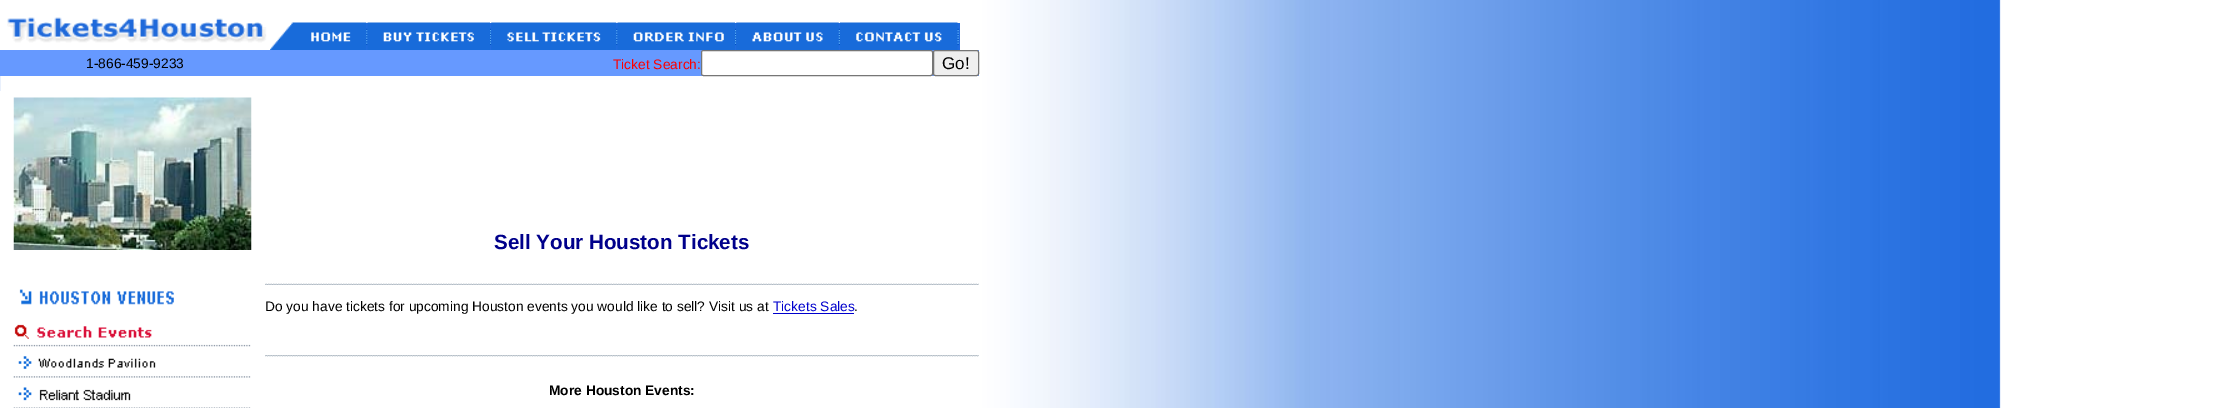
%!PS
<< /PageSize [2219 408] >> setpagedevice
/rgb { 3 { 255 div 3 1 roll } repeat setrgbcolor } def
/font { [ exch dup neg 0 0 3 -1 roll 0 0 ] selectfont } def
/text { moveto show } def
/roundrect { 5 dict begin { /r /h /w /y /x } { exch def } forall
  x r add y moveto x w add y 2 copy h add r arct x w add y h add x 1 index r arct
  x y h add x y r arct x y 2 copy exch w add exch r arct closepath end } def
/picture { 5 dict begin { /h /w /y /x /name } { exch def } forall
  gsave x y translate w h scale
  w h 8 [w 0 0 h 0 0] name (r) file false 3 colorimage grestore end } def
0 408 translate 1 -1 scale
4 setmiterlimit
255 255 255 rgb
0 0 2219 408 rectfill
(img_01.rgb) 0 0 2001 408 picture
0 0 1 50 rectfill
(img_02.rgb) 7 17 260 26 picture
32 108 224 rgb
366 23 594 27 rectfill
(img_03.rgb) 270 22 25 28 picture
(img_04.rgb) 295 22 72 28 picture
(img_10.rgb) 366 28 2 17 picture
(img_05.rgb) 367 22 123 28 picture
(img_11.rgb) 490 28 2 17 picture
(img_06.rgb) 491 22 126 28 picture
(img_10.rgb) 616 28 2 17 picture
(img_07.rgb) 617 22 118 28 picture
(img_11.rgb) 735 28 2 17 picture
(img_08.rgb) 736 22 103 28 picture
(img_09.rgb) 840 22 118 28 picture
(img_12.rgb) 838 28 2 17 picture
(img_13.rgb) 957 28 2 17 picture
102 153 255 rgb
0 50 979 26 rectfill
255 255 255 rgb
701.5 50.5 231 25 2 roundrect gsave fill grestore
118 118 118 rgb
stroke
239 239 239 rgb
933.5 50.5 45 25 2 roundrect gsave fill grestore
118 118 118 rgb
stroke
255 255 255 rgb
0 91 1 317 rectfill
(img_14.rgb) 13 97 239 153 picture
(img_15.rgb) 19 289 155 16 picture
(img_16.rgb) 13 324 238 23 picture
(img_17.rgb) 13 356 238 22 picture
(img_18.rgb) 13 387 238 21 picture
(img_19.rgb) 265 283 714 2 picture
0 0 205 rgb
773 313 81 1 rectfill
(img_20.rgb) 265 355 714 2 picture
/LiberationSans-Regular 13.75 font
0 0 0 rgb
(1-866-459-9233) 86 68 text
255 0 0 rgb
(Ticket Search:) 613 69 text
/LiberationSans-Regular 17 font
0 0 0 rgb
(Go!) 942 69 text
/LiberationSans-Bold 20.6 font
0 0 139 rgb
(Sell Your Houston Tickets) 494 249 text
/LiberationSans-Regular 13.75 font
0 0 0 rgb
(Do you have tickets for upcoming Houston events you would like to sell? Visit us at) 265 311 text
0 0 205 rgb
(Tickets Sales) 773 311 text
0 0 0 rgb
(.) 854 311 text
/LiberationSans-Bold 13.75 font
(More Houston Events:) 549 395 text
showpage
